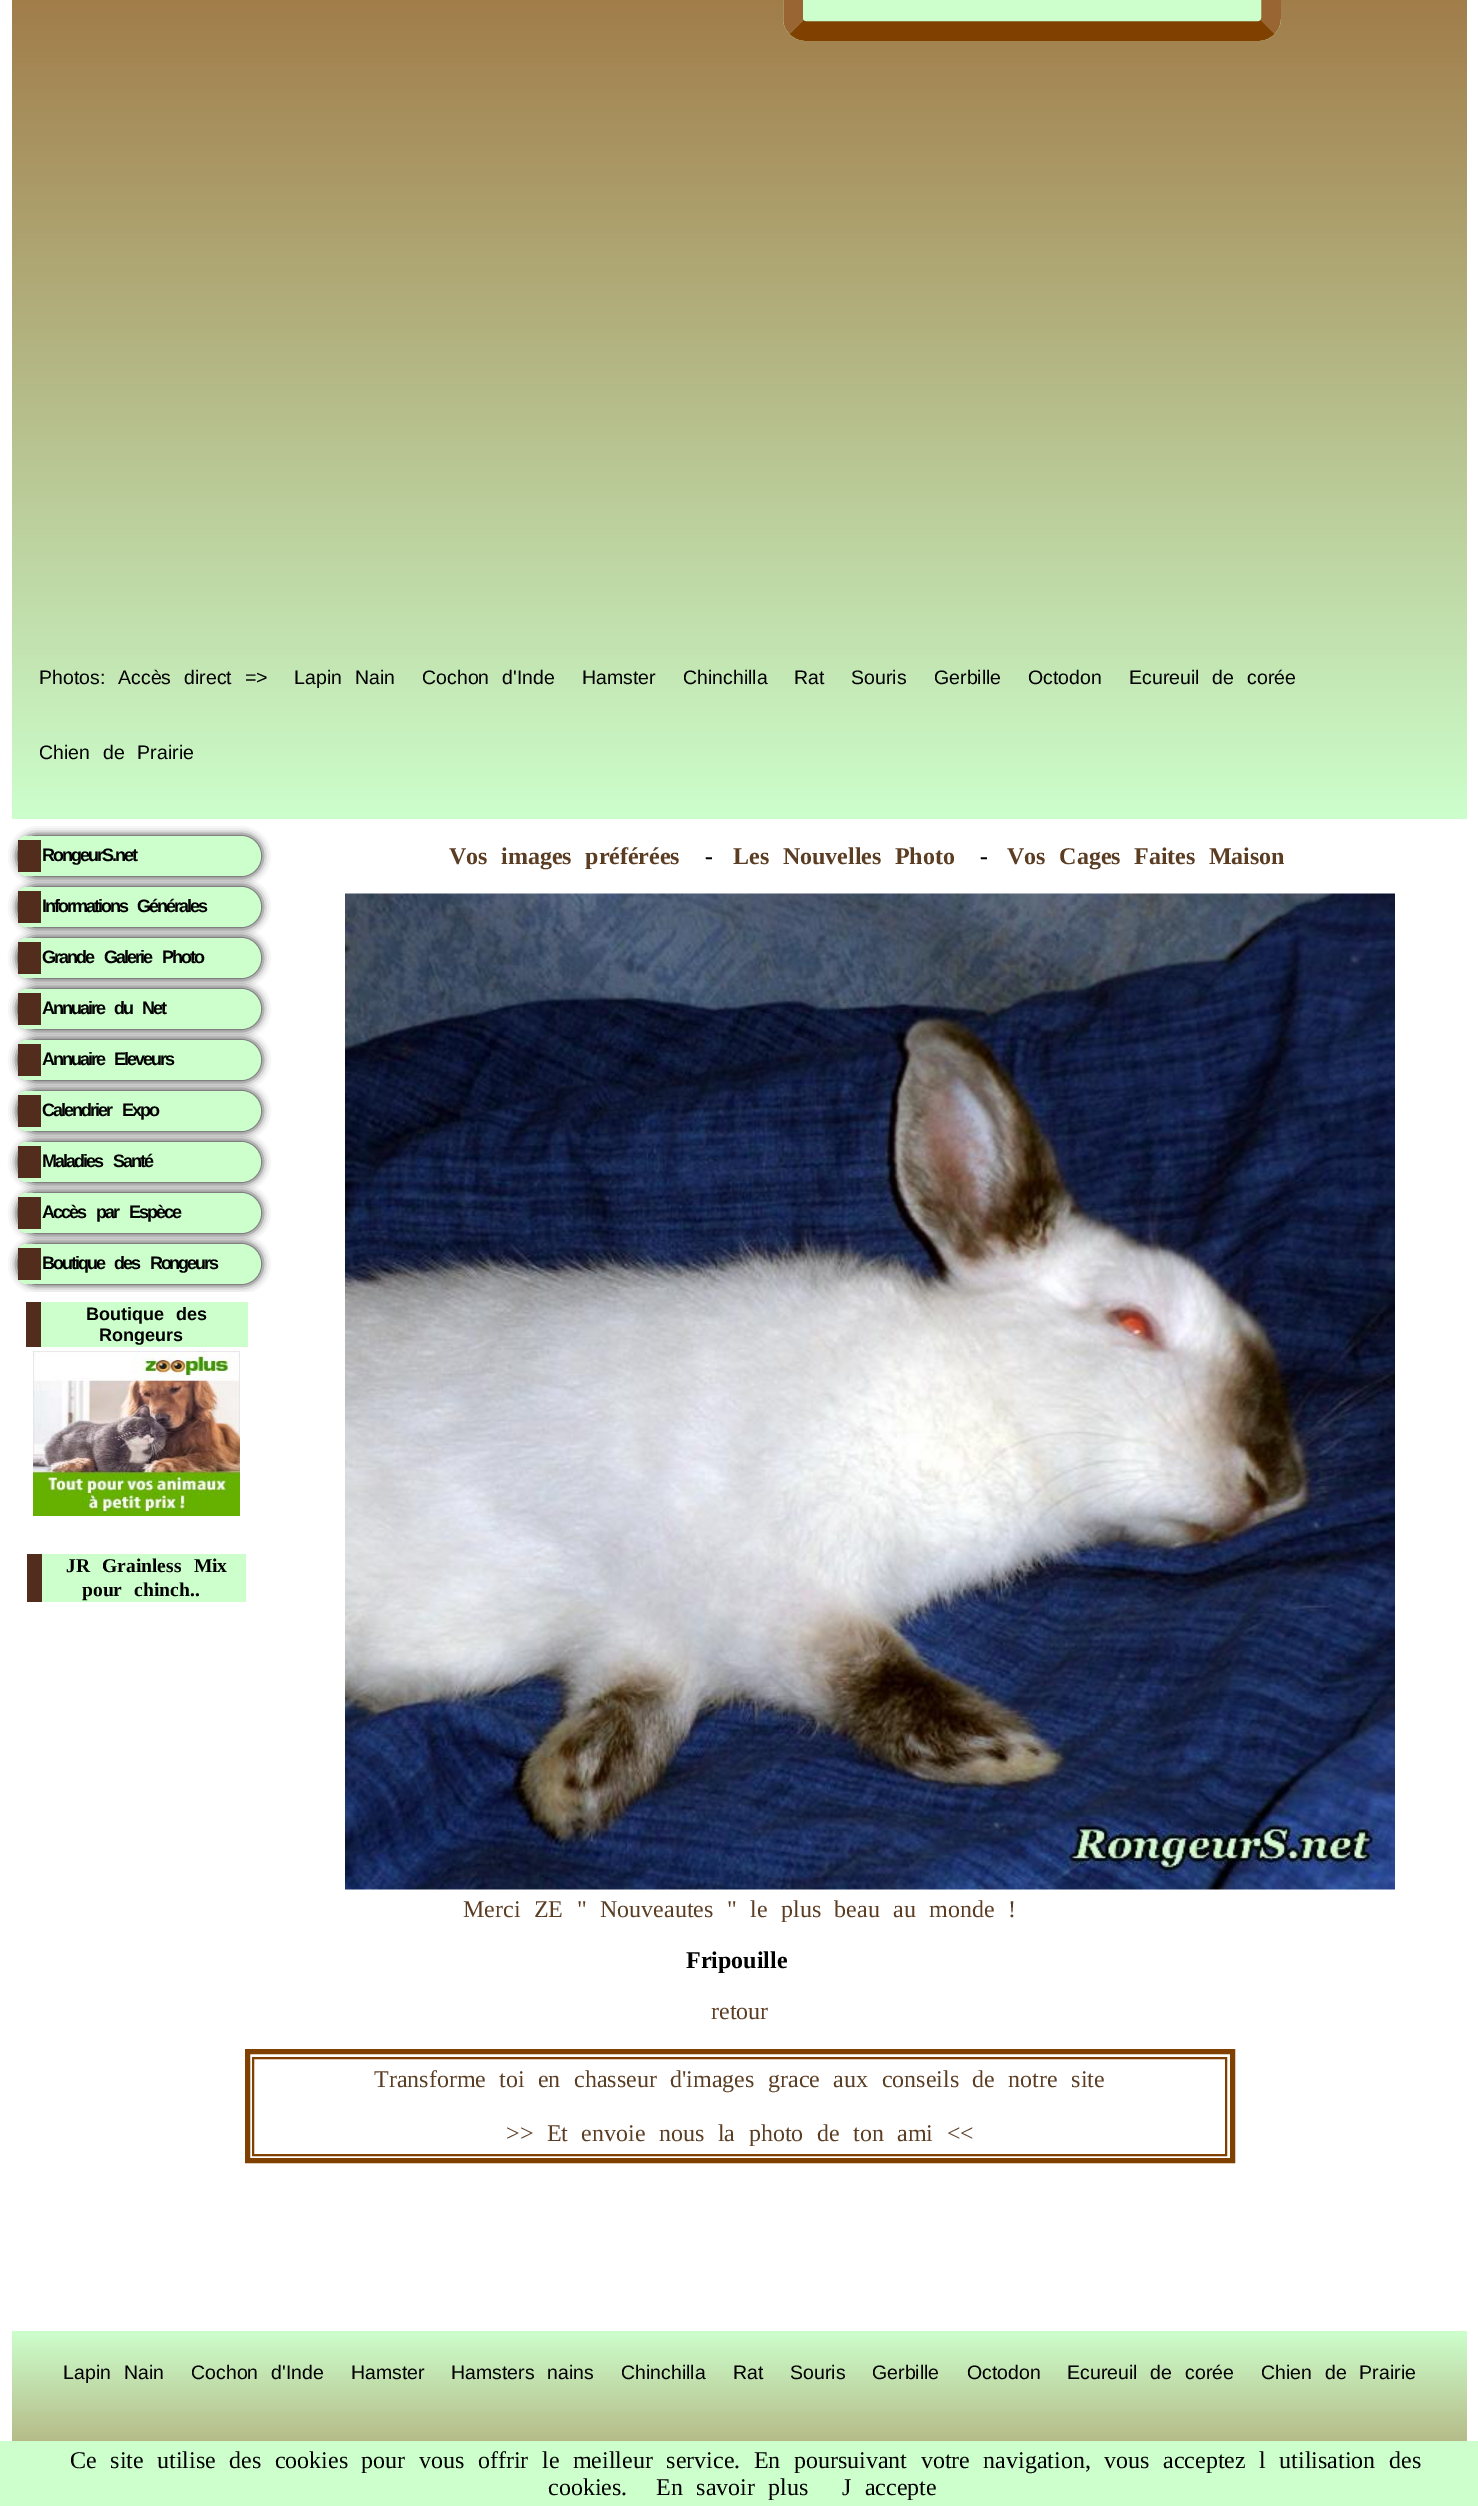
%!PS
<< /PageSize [1478 2506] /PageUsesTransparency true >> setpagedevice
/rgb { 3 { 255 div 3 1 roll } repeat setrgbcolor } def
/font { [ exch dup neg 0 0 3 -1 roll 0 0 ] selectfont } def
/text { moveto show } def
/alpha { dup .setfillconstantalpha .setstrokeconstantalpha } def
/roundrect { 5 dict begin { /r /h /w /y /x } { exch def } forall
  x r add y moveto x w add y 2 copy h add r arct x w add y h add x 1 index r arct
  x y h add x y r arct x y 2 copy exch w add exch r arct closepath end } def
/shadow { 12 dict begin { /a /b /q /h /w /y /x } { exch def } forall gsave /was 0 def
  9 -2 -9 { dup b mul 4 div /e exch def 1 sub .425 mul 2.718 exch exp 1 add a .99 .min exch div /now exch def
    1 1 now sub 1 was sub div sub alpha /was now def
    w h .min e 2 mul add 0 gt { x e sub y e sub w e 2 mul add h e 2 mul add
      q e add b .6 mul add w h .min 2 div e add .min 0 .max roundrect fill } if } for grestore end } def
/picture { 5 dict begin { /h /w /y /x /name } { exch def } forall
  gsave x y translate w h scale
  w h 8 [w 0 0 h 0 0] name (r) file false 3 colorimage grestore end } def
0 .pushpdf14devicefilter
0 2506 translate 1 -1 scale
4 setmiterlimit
255 255 255 rgb
0 0 1478 2506 rectfill
gsave 12 0 moveto 1455 0 rlineto 0 819 rlineto -1455 0 rlineto closepath clip newpath
<< /ShadingType 2 /ColorSpace /DeviceRGB /Coords [12 -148 12 819] /Extend [true true] /Function << /FunctionType 2 /Domain [0 1] /C0 [0.6 0.4 0.2] /C1 [0.8 1 0.8] /N 1 >> >> shfill grestore
204 255 204 rgb
783 -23 498 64 23 roundrect fill
153 102 51 rgb
19.5 setlinewidth
1267.5 -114 moveto 2.5 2.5 3.5 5.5 3.5 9 rcurveto 0 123 rlineto 0 3.5 -1 6.5 -3.5 9 rcurveto stroke
128 64 0 rgb
1267.5 27 moveto -2.5 2.5 -5.5 4 -9 4 rcurveto -453 0 rlineto -3.5 0 -6.5 -1.5 -9 -4 rcurveto stroke
153 102 51 rgb
796.5 27 moveto -2.5 -2.5 -3.5 -5.5 -3.5 -9 rcurveto 0 -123 rlineto 0 -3.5 1 -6.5 3.5 -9 rcurveto stroke
0 0 0 rgb
18 836 243 40 20 4.5 1 shadow
204 255 204 rgb
26 836 moveto 215 0 rlineto 11 0 20 9 20 20 rcurveto 0 11 -9 20 -20 20 rcurveto -215 0 rlineto -4.5 0 -8 -3.5 -8 -8 rcurveto 0 -24 rlineto 0 -4.5 3.5 -8 8 -8 rcurveto closepath fill
82 44 29 rgb
18 840 23 32 rectfill
0 0 0 rgb
18 887 243 40 20 4.5 1 shadow
204 255 204 rgb
26 887 moveto 215 0 rlineto 11 0 20 9 20 20 rcurveto 0 11 -9 20 -20 20 rcurveto -215 0 rlineto -4.5 0 -8 -3.5 -8 -8 rcurveto 0 -24 rlineto 0 -4.5 3.5 -8 8 -8 rcurveto closepath fill
82 44 29 rgb
18 891 23 32 rectfill
0 0 0 rgb
18 938 243 40 20 4.5 1 shadow
204 255 204 rgb
26 938 moveto 215 0 rlineto 11 0 20 9 20 20 rcurveto 0 11 -9 20 -20 20 rcurveto -215 0 rlineto -4.5 0 -8 -3.5 -8 -8 rcurveto 0 -24 rlineto 0 -4.5 3.5 -8 8 -8 rcurveto closepath fill
82 44 29 rgb
18 942 23 32 rectfill
0 0 0 rgb
18 989 243 40 20 4.5 1 shadow
204 255 204 rgb
26 989 moveto 215 0 rlineto 11 0 20 9 20 20 rcurveto 0 11 -9 20 -20 20 rcurveto -215 0 rlineto -4.5 0 -8 -3.5 -8 -8 rcurveto 0 -24 rlineto 0 -4.5 3.5 -8 8 -8 rcurveto closepath fill
82 44 29 rgb
18 993 23 32 rectfill
0 0 0 rgb
18 1040 243 40 20 4.5 1 shadow
204 255 204 rgb
26 1040 moveto 215 0 rlineto 11 0 20 9 20 20 rcurveto 0 11 -9 20 -20 20 rcurveto -215 0 rlineto -4.5 0 -8 -3.5 -8 -8 rcurveto 0 -24 rlineto 0 -4.5 3.5 -8 8 -8 rcurveto closepath fill
82 44 29 rgb
18 1044 23 32 rectfill
0 0 0 rgb
18 1091 243 40 20 4.5 1 shadow
204 255 204 rgb
26 1091 moveto 215 0 rlineto 11 0 20 9 20 20 rcurveto 0 11 -9 20 -20 20 rcurveto -215 0 rlineto -4.5 0 -8 -3.5 -8 -8 rcurveto 0 -24 rlineto 0 -4.5 3.5 -8 8 -8 rcurveto closepath fill
82 44 29 rgb
18 1095 23 32 rectfill
0 0 0 rgb
18 1142 243 40 20 4.5 1 shadow
204 255 204 rgb
26 1142 moveto 215 0 rlineto 11 0 20 9 20 20 rcurveto 0 11 -9 20 -20 20 rcurveto -215 0 rlineto -4.5 0 -8 -3.5 -8 -8 rcurveto 0 -24 rlineto 0 -4.5 3.5 -8 8 -8 rcurveto closepath fill
82 44 29 rgb
18 1146 23 32 rectfill
0 0 0 rgb
18 1193 243 40 20 4.5 1 shadow
204 255 204 rgb
26 1193 moveto 215 0 rlineto 11 0 20 9 20 20 rcurveto 0 11 -9 20 -20 20 rcurveto -215 0 rlineto -4.5 0 -8 -3.5 -8 -8 rcurveto 0 -24 rlineto 0 -4.5 3.5 -8 8 -8 rcurveto closepath fill
82 44 29 rgb
18 1197 23 32 rectfill
0 0 0 rgb
18 1244 243 40 20 4.5 1 shadow
204 255 204 rgb
26 1244 moveto 215 0 rlineto 11 0 20 9 20 20 rcurveto 0 11 -9 20 -20 20 rcurveto -215 0 rlineto -4.5 0 -8 -3.5 -8 -8 rcurveto 0 -24 rlineto 0 -4.5 3.5 -8 8 -8 rcurveto closepath fill
82 44 29 rgb
18 1248 23 32 rectfill
255 255 255 rgb
28 1292 223 2 rectfill
204 255 204 rgb
41 1302 207 45 rectfill
82 44 29 rgb
26 1302 15 45 rectfill
(img_01.rgb) 33 1351 207 165 picture
204 255 204 rgb
42 1554 204 48 rectfill
82 44 29 rgb
27 1554 15 48 rectfill
(img_02.rgb) 345 893 1050 997 picture
128 64 0 rgb
5 setlinewidth
247.5 2051.5 985 109 rectstroke
2 setlinewidth
253 2058 973 97 rectstroke
gsave 12 2331 moveto 1455 0 rlineto 0 101 rlineto 0 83 -67 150 -150 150 rcurveto -1155 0 rlineto -83 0 -150 -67 -150 -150 rcurveto closepath clip newpath
<< /ShadingType 2 /ColorSpace /DeviceRGB /Coords [12 2331 12 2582] /Extend [true true] /Function << /FunctionType 2 /Domain [0 1] /C0 [0.8 1 0.8] /C1 [0.6 0.4 0.2] /N 1 >> >> shfill grestore
204 255 204 rgb
0 2441 1478 65 rectfill
/LiberationSans-Regular 19.5 font
0 0 0 rgb
39 684 moveto 7.5 0 32 (Photos: Accès direct =>) widthshow
294 684 moveto 7.5 0 32 (Lapin Nain) widthshow
422 684 moveto 7.5 0 32 (Cochon d'Inde) widthshow
(Hamster) 582 684 text
(Chinchilla) 683 684 text
(Rat) 794 684 text
(Souris) 851 684 text
(Gerbille) 934 684 text
(Octodon) 1028 684 text
1129 684 moveto 7.5 0 32 (Ecureuil de corée) widthshow
39 759 moveto 7.5 0 32 (Chien de Prairie) widthshow
/LiberationSans-Bold 18 font
42 861 moveto -2 0 (RongeurS.net) ashow
42 912 moveto -2 0 (Informations) ashow
137 912 moveto -2 0 (Générales) ashow
42 963 moveto -2 0 (Grande) ashow
104 963 moveto 7.5 0 32 -2 0 (Galerie Photo) awidthshow
42 1014 moveto -2 0 (Annuaire) ashow
114 1014 moveto 7.5 0 32 -2 0 (du Net) awidthshow
42 1065 moveto -2 0 (Annuaire) ashow
114 1065 moveto -2 0 (Eleveurs) ashow
42 1116 moveto -2 0 (Calendrier) ashow
122 1116 moveto -2 0 (Expo) ashow
42 1167 moveto -2 0 (Maladies) ashow
113 1167 moveto -2 0 (Santé) ashow
42 1218 moveto -2 0 (Accès) ashow
96 1218 moveto 7.5 0 32 -2 0 (par Espèce) awidthshow
42 1269 moveto -2 0 (Boutique) ashow
114 1269 moveto 7.5 0 32 -2 0 (des Rongeurs) awidthshow
86 1320 moveto 7.5 0 32 (Boutique des) widthshow
(Rongeurs) 99 1341 text
/LiberationSerif-Bold 19.5 font
66 1572 moveto 7.5 0 32 (JR Grainless Mix) widthshow
82 1596 moveto 7.5 0 32 (pour chinch..) widthshow
/LiberationSerif-Bold 24 font
91 61 35 rgb
(Vos) 449 864 text
501 864 moveto 7.5 0 32 (images préférées) widthshow
0 0 0 rgb
(-) 705 864 text
91 61 35 rgb
733 864 moveto 7.5 0 32 (Les Nouvelles Photo) widthshow
0 0 0 rgb
(-) 980 864 text
91 61 35 rgb
1007 864 moveto 7.5 0 32 (Vos Cages Faites Maison) widthshow
/LiberationSerif-Regular 24 font
463 1917 moveto 7.5 0 32 (Merci ZE ") widthshow
600 1917 moveto 7.5 0 32 (Nouveautes " le plus beau au monde !) widthshow
/LiberationSerif-Bold 24 font
0 0 0 rgb
(Fripouille) 686 1968 text
/LiberationSerif-Regular 24 font
91 61 35 rgb
(retour) 711 2019 text
(Transforme) 374 2087 text
499 2087 moveto 7.5 0 32 (toi en chasseur d'images grace aux conseils de notre site) widthshow
506 2141 moveto 7.5 0 32 (>> Et envoie nous la photo de ton ami <<) widthshow
/LiberationSans-Regular 19.5 font
0 0 0 rgb
63 2379 moveto 7.5 0 32 (Lapin Nain) widthshow
191 2379 moveto 7.5 0 32 (Cochon d'Inde) widthshow
(Hamster) 351 2379 text
451 2379 moveto 7.5 0 32 (Hamsters nains) widthshow
(Chinchilla) 621 2379 text
(Rat) 733 2379 text
(Souris) 790 2379 text
(Gerbille) 872 2379 text
(Octodon) 967 2379 text
1067 2379 moveto 7.5 0 32 (Ecureuil de corée) widthshow
1261 2379 moveto 7.5 0 32 (Chien de Prairie) widthshow
/LiberationSerif-Regular 24 font
70 2468 moveto 7.5 0 32 (Ce site utilise des cookies pour vous offrir le meilleur service. En poursuivant votre navigation, vous acceptez l utilisation des) widthshow
(cookies.) 548 2495 text
656 2495 moveto 7.5 0 32 (En savoir plus) widthshow
842 2495 moveto 7.5 0 32 (J accepte) widthshow
.poppdf14devicefilter showpage
